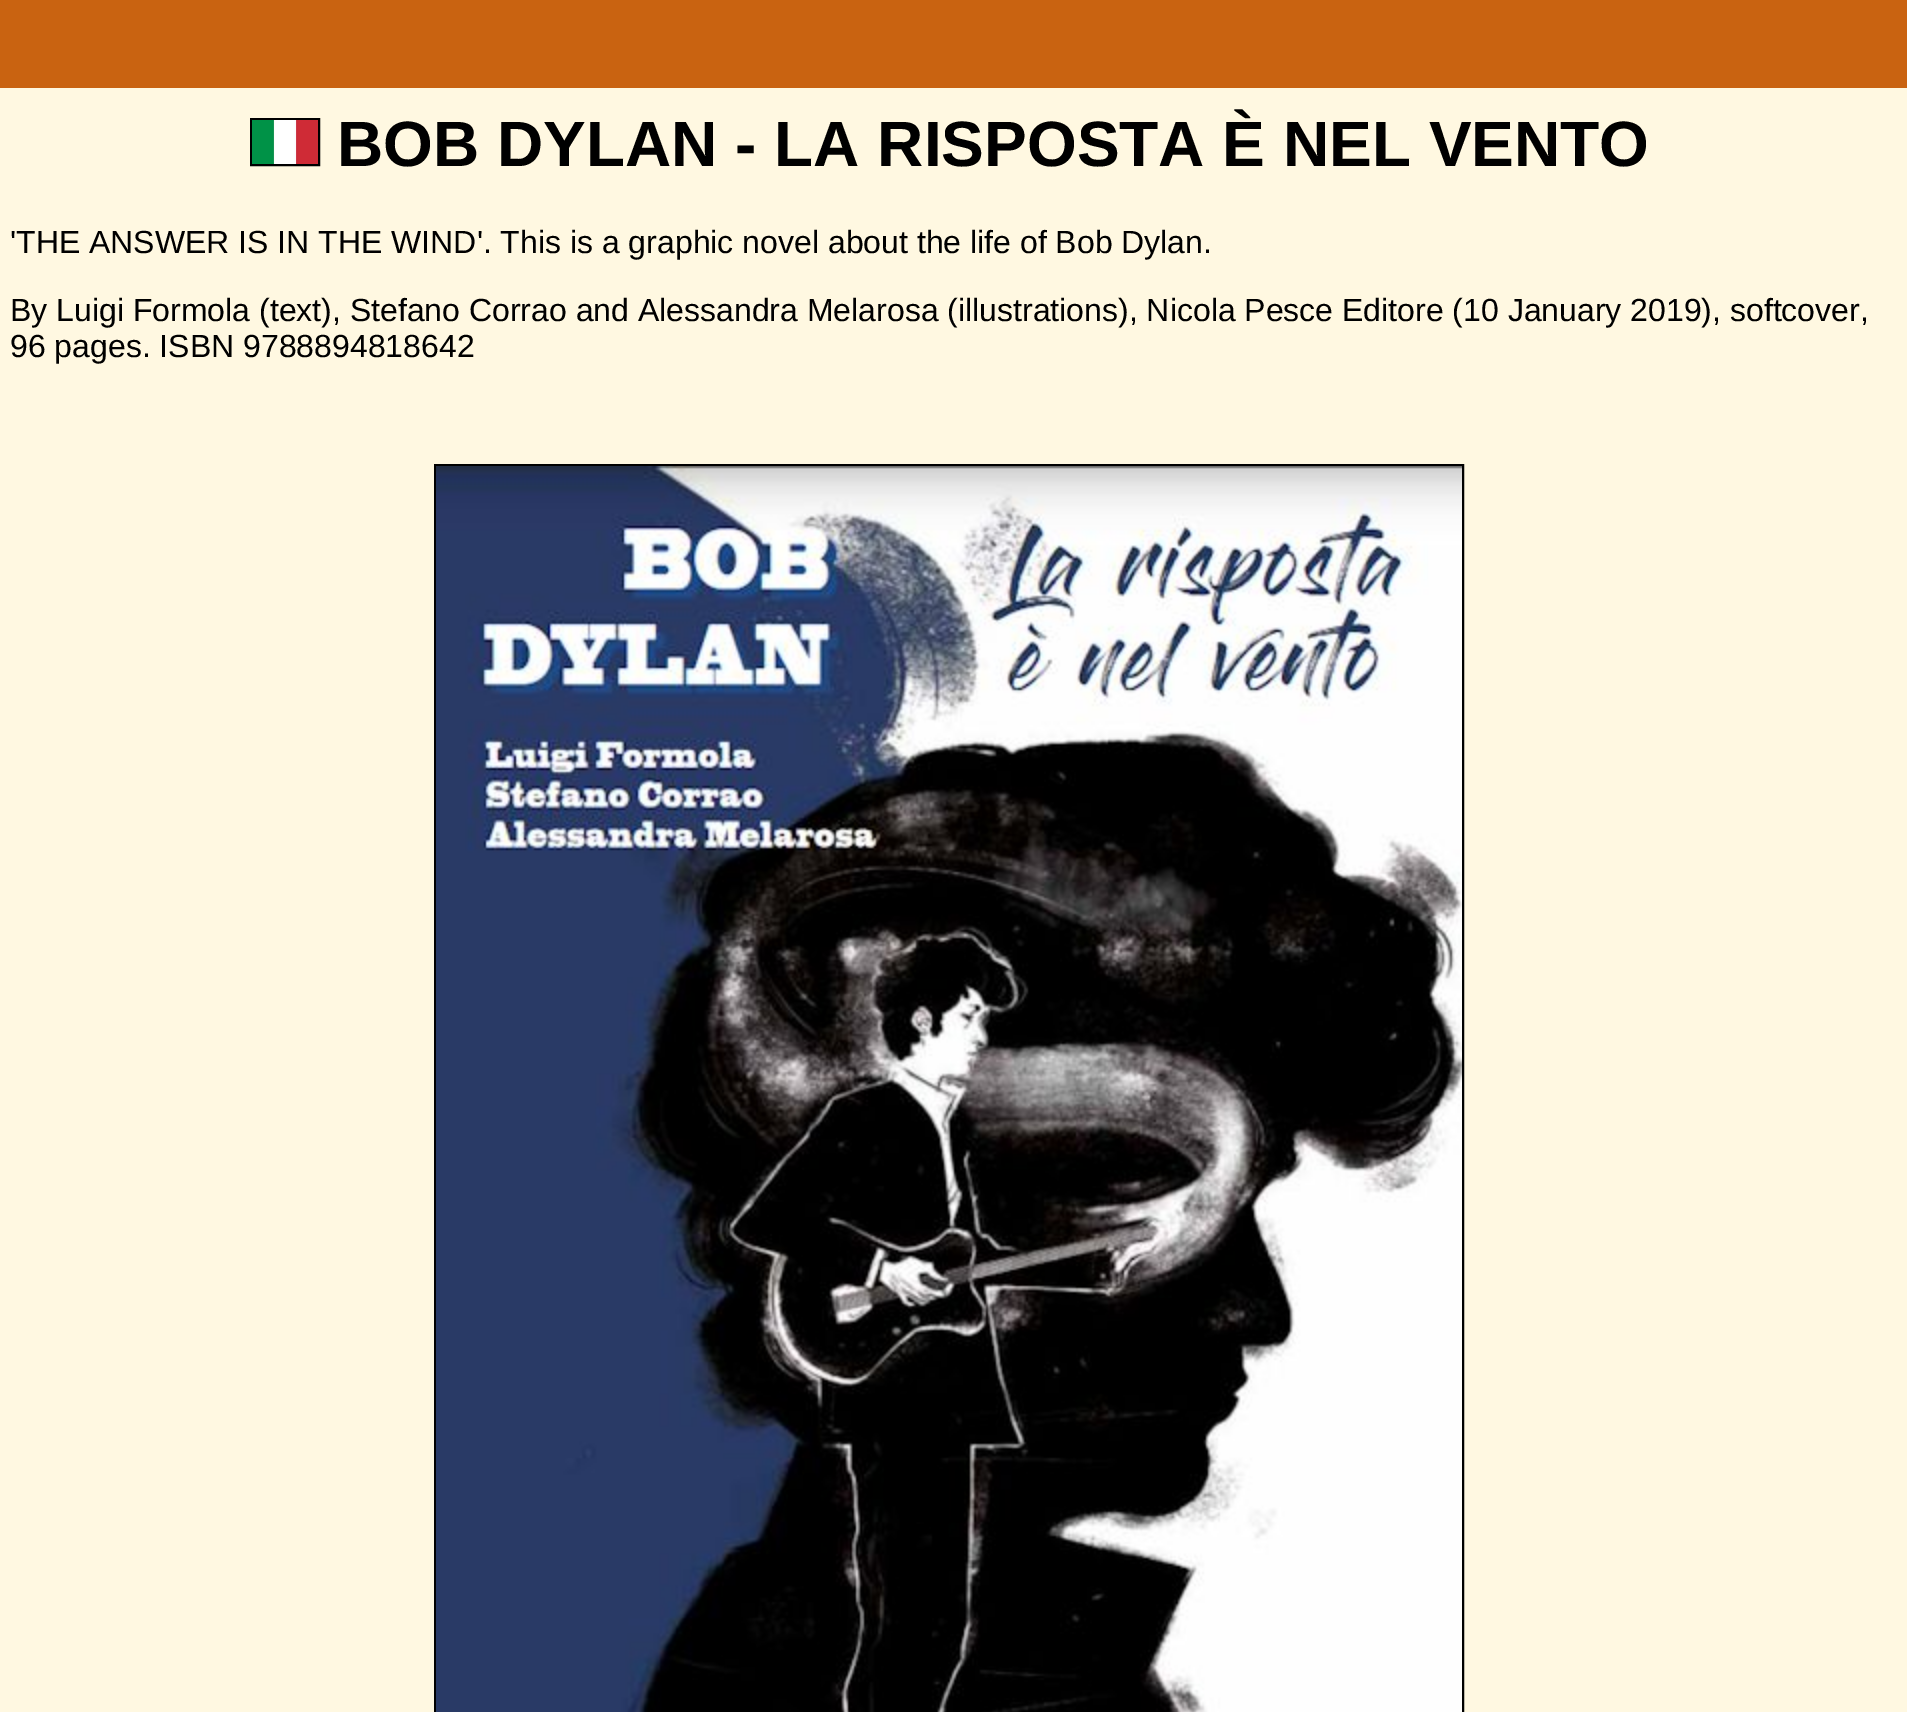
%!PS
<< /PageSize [1907 1712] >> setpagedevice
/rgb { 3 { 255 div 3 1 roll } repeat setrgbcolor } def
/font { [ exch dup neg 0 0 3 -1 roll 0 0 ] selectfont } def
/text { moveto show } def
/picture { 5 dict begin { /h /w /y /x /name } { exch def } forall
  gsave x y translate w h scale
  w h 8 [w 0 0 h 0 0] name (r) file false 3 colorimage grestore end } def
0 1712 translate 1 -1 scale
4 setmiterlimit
255 248 225 rgb
0 0 1907 1712 rectfill
201 99 17 rgb
0 0 1907 88 rectfill
0 0 0 rgb
2 setlinewidth
251 119 68 46 rectstroke
(img_01.rgb) 252 120 66 44 picture
435 465 1028 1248 rectstroke
(img_02.rgb) 436 466 1026 1246 picture
/LiberationSans-Bold 64 font
(BOB DYLAN - LA RISPOSTA È NEL VENTO) 337 166 text
/LiberationSans-Regular 32 font
('THE ANSWER IS IN THE WIND'. This is a graphic novel about the life of Bob Dylan.) 10 253 text
(By Luigi Formola \(text\), Stefano Corrao and Alessandra Melarosa \(illustrations\), Nicola Pesce Editore \(10 January 2019\), softcover,) 10 321 text
(96 pages. ISBN 9788894818642) 10 357 text
showpage
